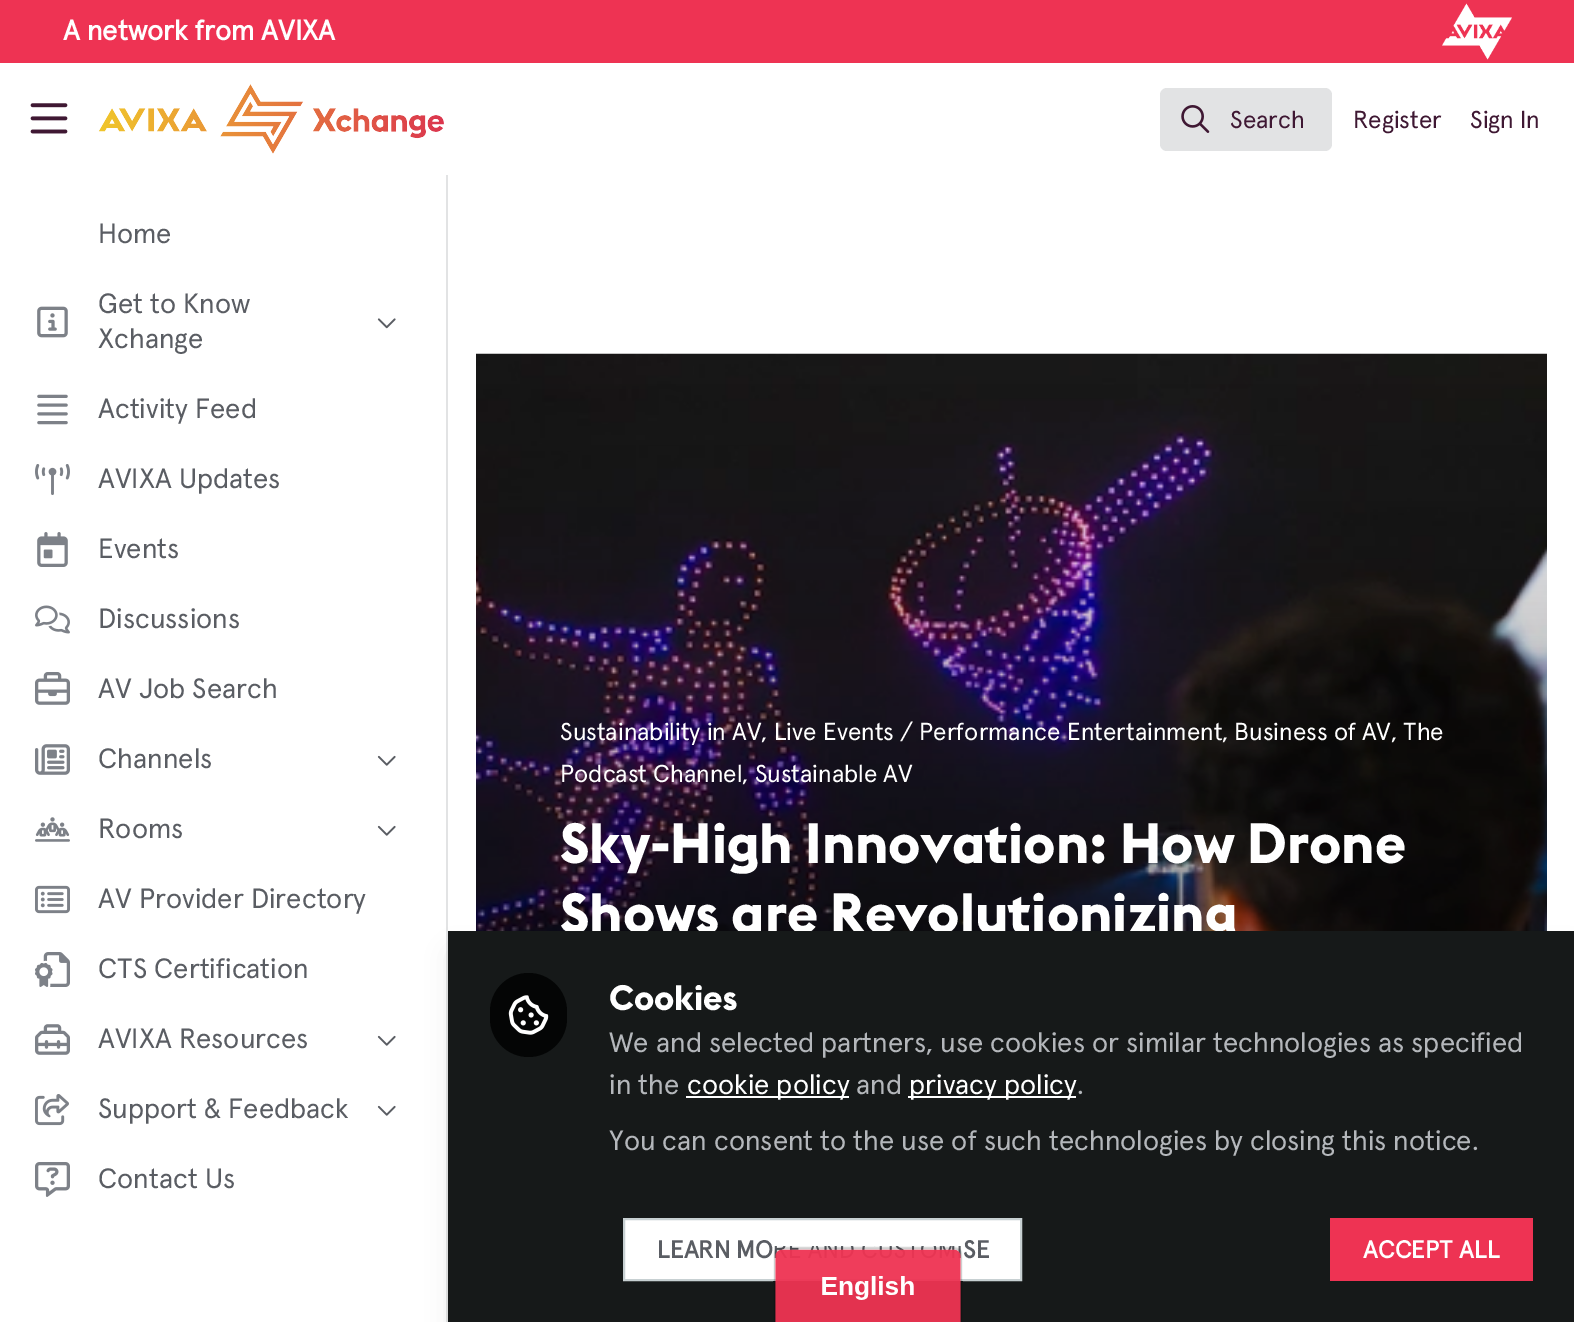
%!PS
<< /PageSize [1574 1322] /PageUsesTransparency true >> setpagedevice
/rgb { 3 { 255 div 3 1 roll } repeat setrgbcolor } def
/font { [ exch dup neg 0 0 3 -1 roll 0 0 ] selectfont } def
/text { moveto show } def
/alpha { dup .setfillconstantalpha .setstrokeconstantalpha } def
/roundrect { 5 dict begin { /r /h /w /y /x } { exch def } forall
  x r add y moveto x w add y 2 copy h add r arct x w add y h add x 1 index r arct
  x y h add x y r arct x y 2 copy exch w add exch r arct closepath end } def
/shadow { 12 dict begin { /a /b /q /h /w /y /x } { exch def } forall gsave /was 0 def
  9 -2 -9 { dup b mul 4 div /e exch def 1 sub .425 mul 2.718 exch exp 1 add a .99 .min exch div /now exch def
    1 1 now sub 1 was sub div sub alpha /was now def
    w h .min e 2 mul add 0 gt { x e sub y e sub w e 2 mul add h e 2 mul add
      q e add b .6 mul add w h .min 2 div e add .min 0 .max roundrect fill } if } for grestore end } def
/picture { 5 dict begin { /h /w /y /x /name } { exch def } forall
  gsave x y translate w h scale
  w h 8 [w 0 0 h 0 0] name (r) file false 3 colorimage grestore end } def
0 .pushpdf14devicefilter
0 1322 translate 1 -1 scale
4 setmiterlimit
255 255 255 rgb
0 0 1574 1322 rectfill
238 51 83 rgb
0 0 1574 63 rectfill
(img_01.rgb) 1442 3 70 57 picture
(img_02.rgb) 30 103 38 31 picture
(img_03.rgb) 98 84 346 70 picture
226 227 228 rgb
1160 88 172 63 7 roundrect fill
(img_04.rgb) 1181 105 29 28 picture
446 175 2 1147 rectfill
(img_05.rgb) 37 306 31 32 picture
(img_06.rgb) 377 318 19 11 picture
(img_07.rgb) 37 394 31 31 picture
(img_08.rgb) 35 464 35 31 picture
(img_09.rgb) 37 532 31 35 picture
(img_10.rgb) 35 605 35 29 picture
(img_11.rgb) 35 672 35 33 picture
(img_12.rgb) 35 744 35 31 picture
(img_13.rgb) 377 755 19 11 picture
(img_14.rgb) 35 817 35 25 picture
(img_13.rgb) 377 825 19 11 picture
(img_15.rgb) 35 885 35 29 picture
(img_16.rgb) 35 952 35 35 picture
(img_17.rgb) 35 1024 35 31 picture
(img_13.rgb) 377 1035 19 11 picture
(img_18.rgb) 35 1094 34 32 picture
(img_13.rgb) 377 1105 19 11 picture
(img_19.rgb) 35 1162 35 35 picture
(img_20.rgb) 476 353 1071 578 picture
0 0 0 rgb
453 954 1117 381 0 13 0.1 shadow
/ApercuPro-Bold 28 font
255 255 255 rgb
(A network from AVIXA) 63 40 text
/ApercuPro-Regular 24.5 font
63 24 51 rgb
(Search) 1230 128 text
(Register) 1353 128 text
(Sign In) 1470 128 text
/ApercuPro-Regular 28 font
90 93 99 rgb
(Home) 98 243 text
(Get to Know) 98 313 text
(Xchange) 98 348 text
(Activity Feed) 98 418 text
(AVIXA Updates) 98 488 text
(Events) 98 558 text
(Discussions) 98 628 text
(AV Job Search) 98 698 text
(Channels) 98 768 text
(Rooms) 98 838 text
(AV Provider Directory) 98 908 text
(CTS Certification) 98 978 text
(AVIXA Resources) 98 1048 text
(Support & Feedback) 98 1118 text
(Contact Us) 98 1188 text
/ApercuPro-Regular 24.5 font
255 255 255 rgb
(Sustainability in AV, Live Events / Performance Entertainment, Business of AV, The) 560 740 text
(Podcast Channel, Sustainable AV) 560 782 text
/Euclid-Bold 56 font
(Sky-High Innovation: How Drone) 560 863 text
(Shows are Revolutionizing) 560 933 text
22 25 25 rgb
448 931 1126 391 rectfill
4 5 5 rgb
490 973 77 84 38.5 roundrect fill
(img_21.rgb) 508 995 41 40 picture
/Euclid-Bold 35 font
255 255 255 rgb
(Cookies) 609 1010 text
/ApercuPro-Regular 28 font
180 183 187 rgb
(We and selected partners, use cookies or similar technologies as specified) 609 1052 text
(in the) 609 1094 text
255 255 255 rgb
686 1096 163 2 rectfill
(cookie policy) 687 1094 text
180 183 187 rgb
(and) 856 1094 text
255 255 255 rgb
908 1096 168 2 rectfill
(privacy policy) 909 1094 text
180 183 187 rgb
(.) 1077 1094 text
(You can consent to the use of such technologies by closing this notice.) 609 1150 text
255 255 255 rgb
624 1219 moveto 397 0 rlineto 0 61 rlineto -397 0 rlineto closepath gsave fill grestore
199 208 210 rgb
2 setlinewidth
stroke
/ApercuPro-Bold 24.5 font
90 93 99 rgb
(LEARN MO) 657 1258 text
(SE) 963 1258 text
238 51 83 rgb
1330 1218 203 63 rectfill
255 255 255 rgb
(ACCEPT ALL) 1363 1258 text
(img_22.rgb) 773 1246 190 76 picture
.poppdf14devicefilter showpage
